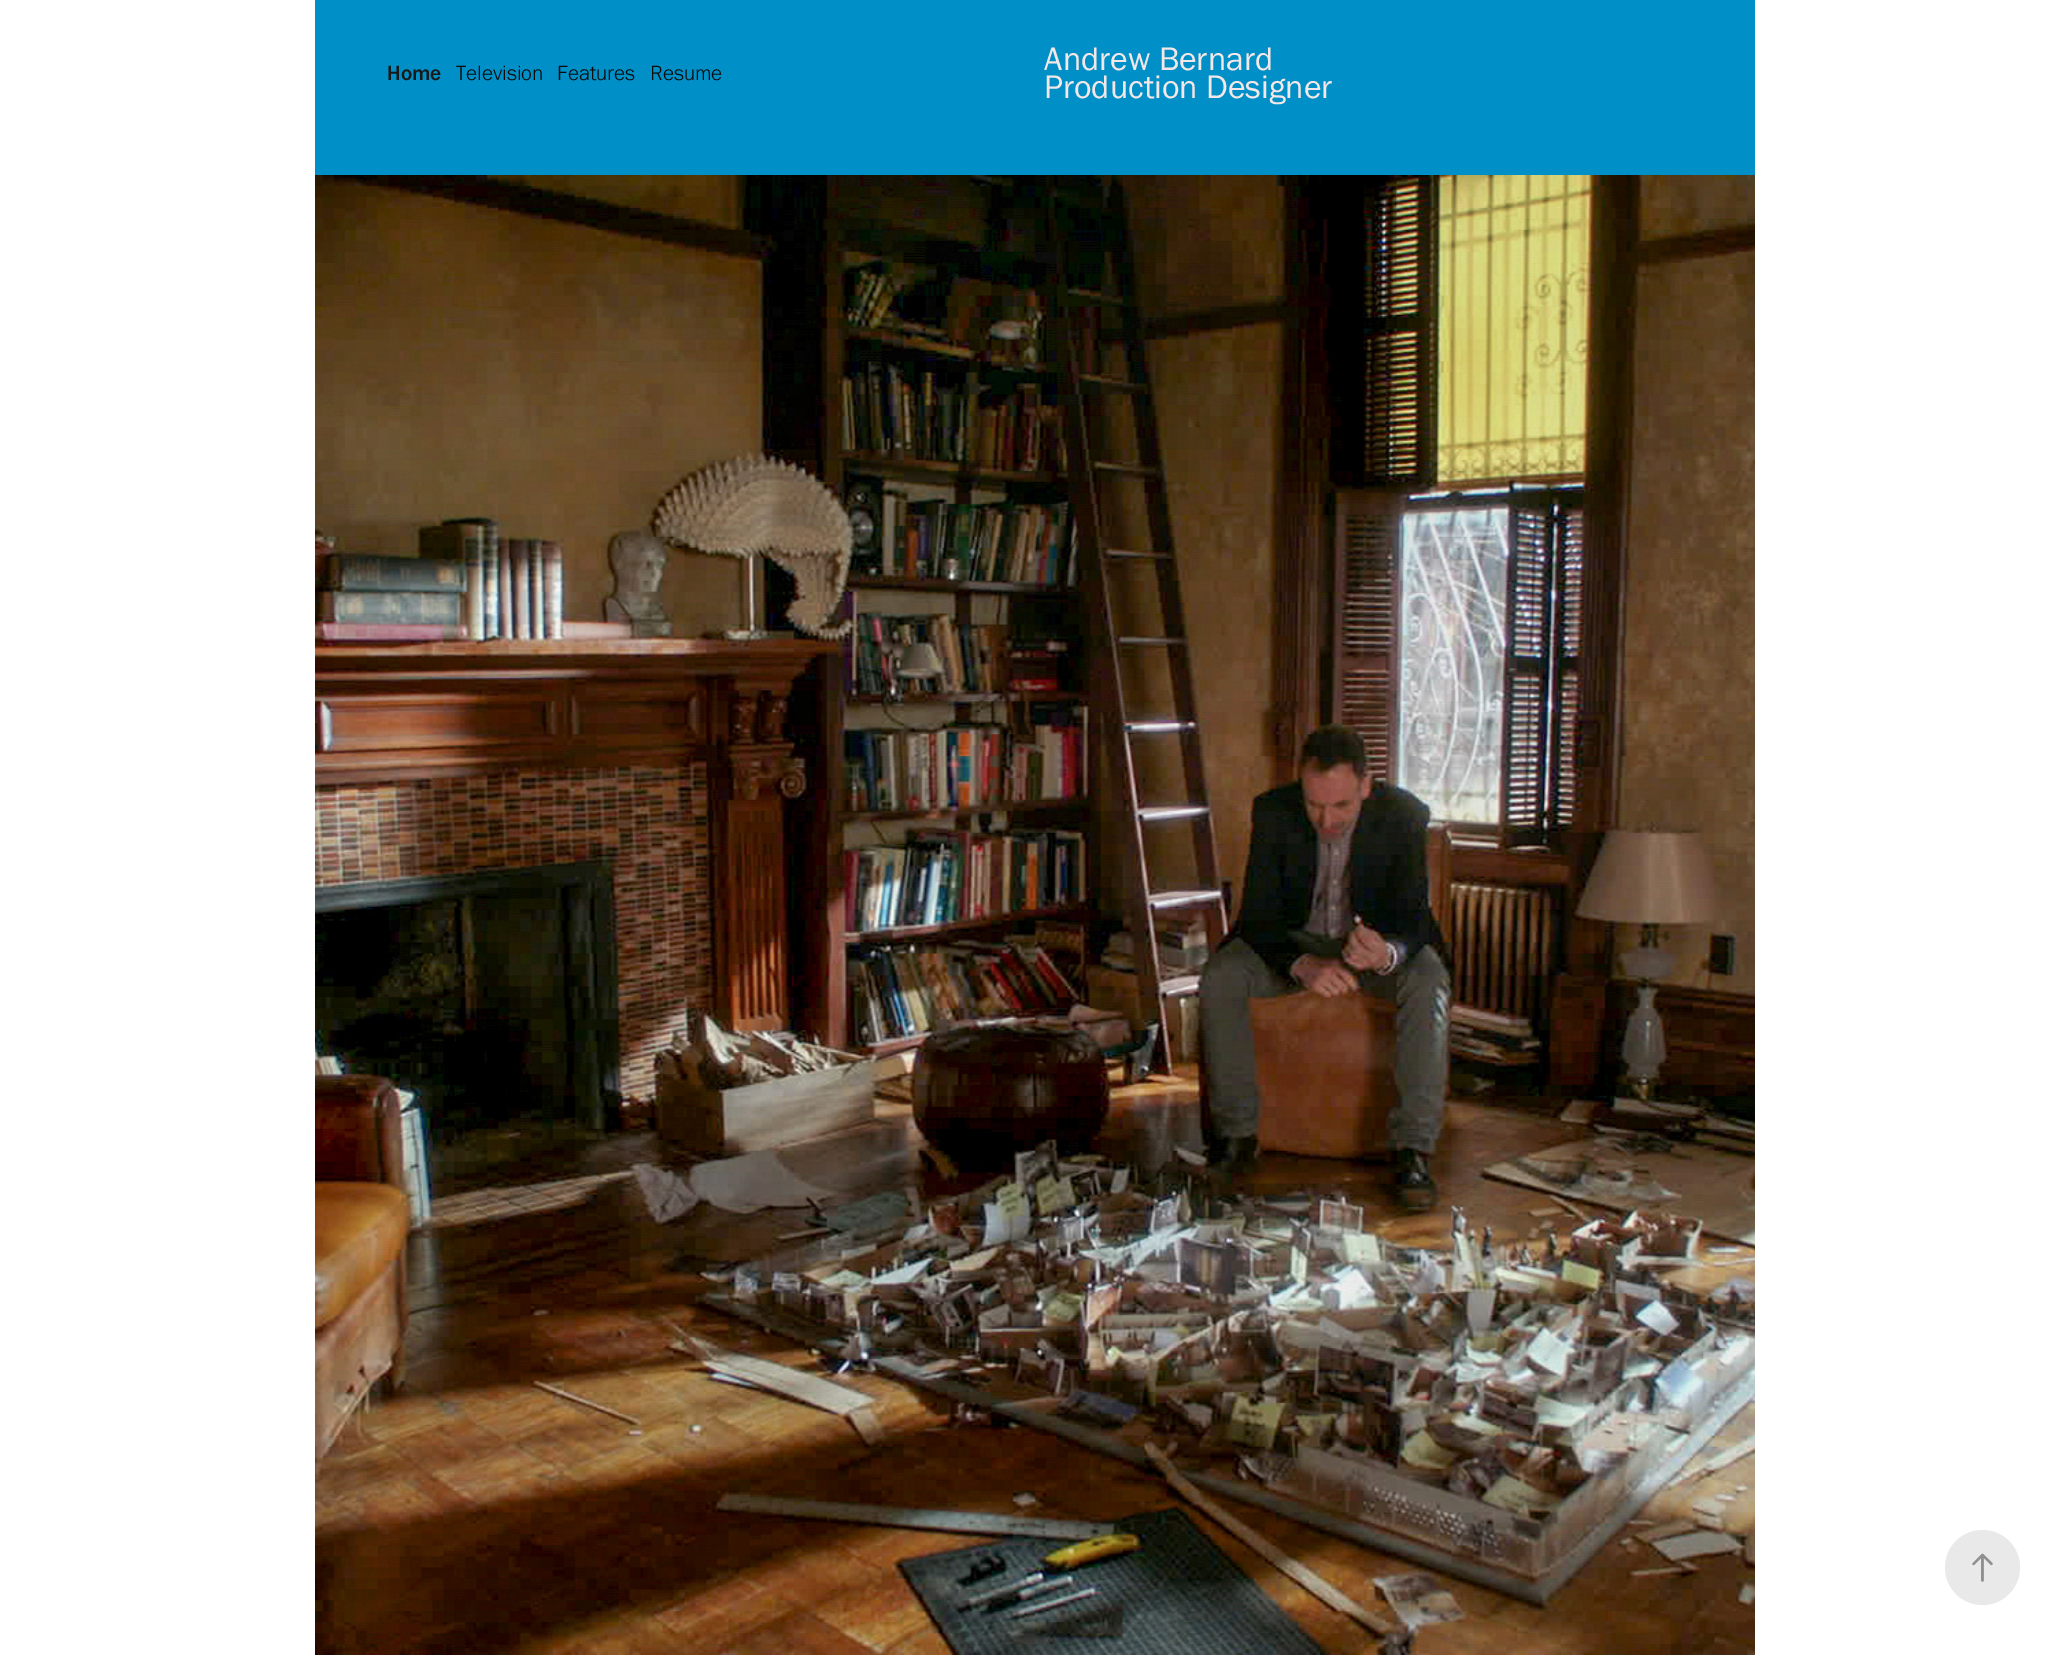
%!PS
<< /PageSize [2069 1655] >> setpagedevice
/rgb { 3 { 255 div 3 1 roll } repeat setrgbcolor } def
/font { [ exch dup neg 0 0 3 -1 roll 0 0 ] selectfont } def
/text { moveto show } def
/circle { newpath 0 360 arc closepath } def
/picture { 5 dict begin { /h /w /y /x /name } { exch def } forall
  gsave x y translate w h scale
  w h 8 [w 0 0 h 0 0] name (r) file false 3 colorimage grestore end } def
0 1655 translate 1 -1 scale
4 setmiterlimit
255 255 255 rgb
0 0 2069 1655 rectfill
0 143 198 rgb
315 0 1440 175 rectfill
(img_01.rgb) 315 175 1440 1480 picture
233 233 233 rgb
1982.5 1567.5 37.5 circle fill
(img_02.rgb) 1972 1553 21 29 picture
/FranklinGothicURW-Medium 21.25 font
25 25 25 rgb
(Home) 387 80 text
/FranklinGothicURW-Light 21.25 font
11 11 11 rgb
(Television) 456 80 text
(Features) 557 80 text
(Resume) 650 80 text
/FranklinGothicURW-Regular 33.75 font
244 231 231 rgb
(Andrew Bernard) 1044 70 text
(Production Designer) 1044 98 text
showpage
